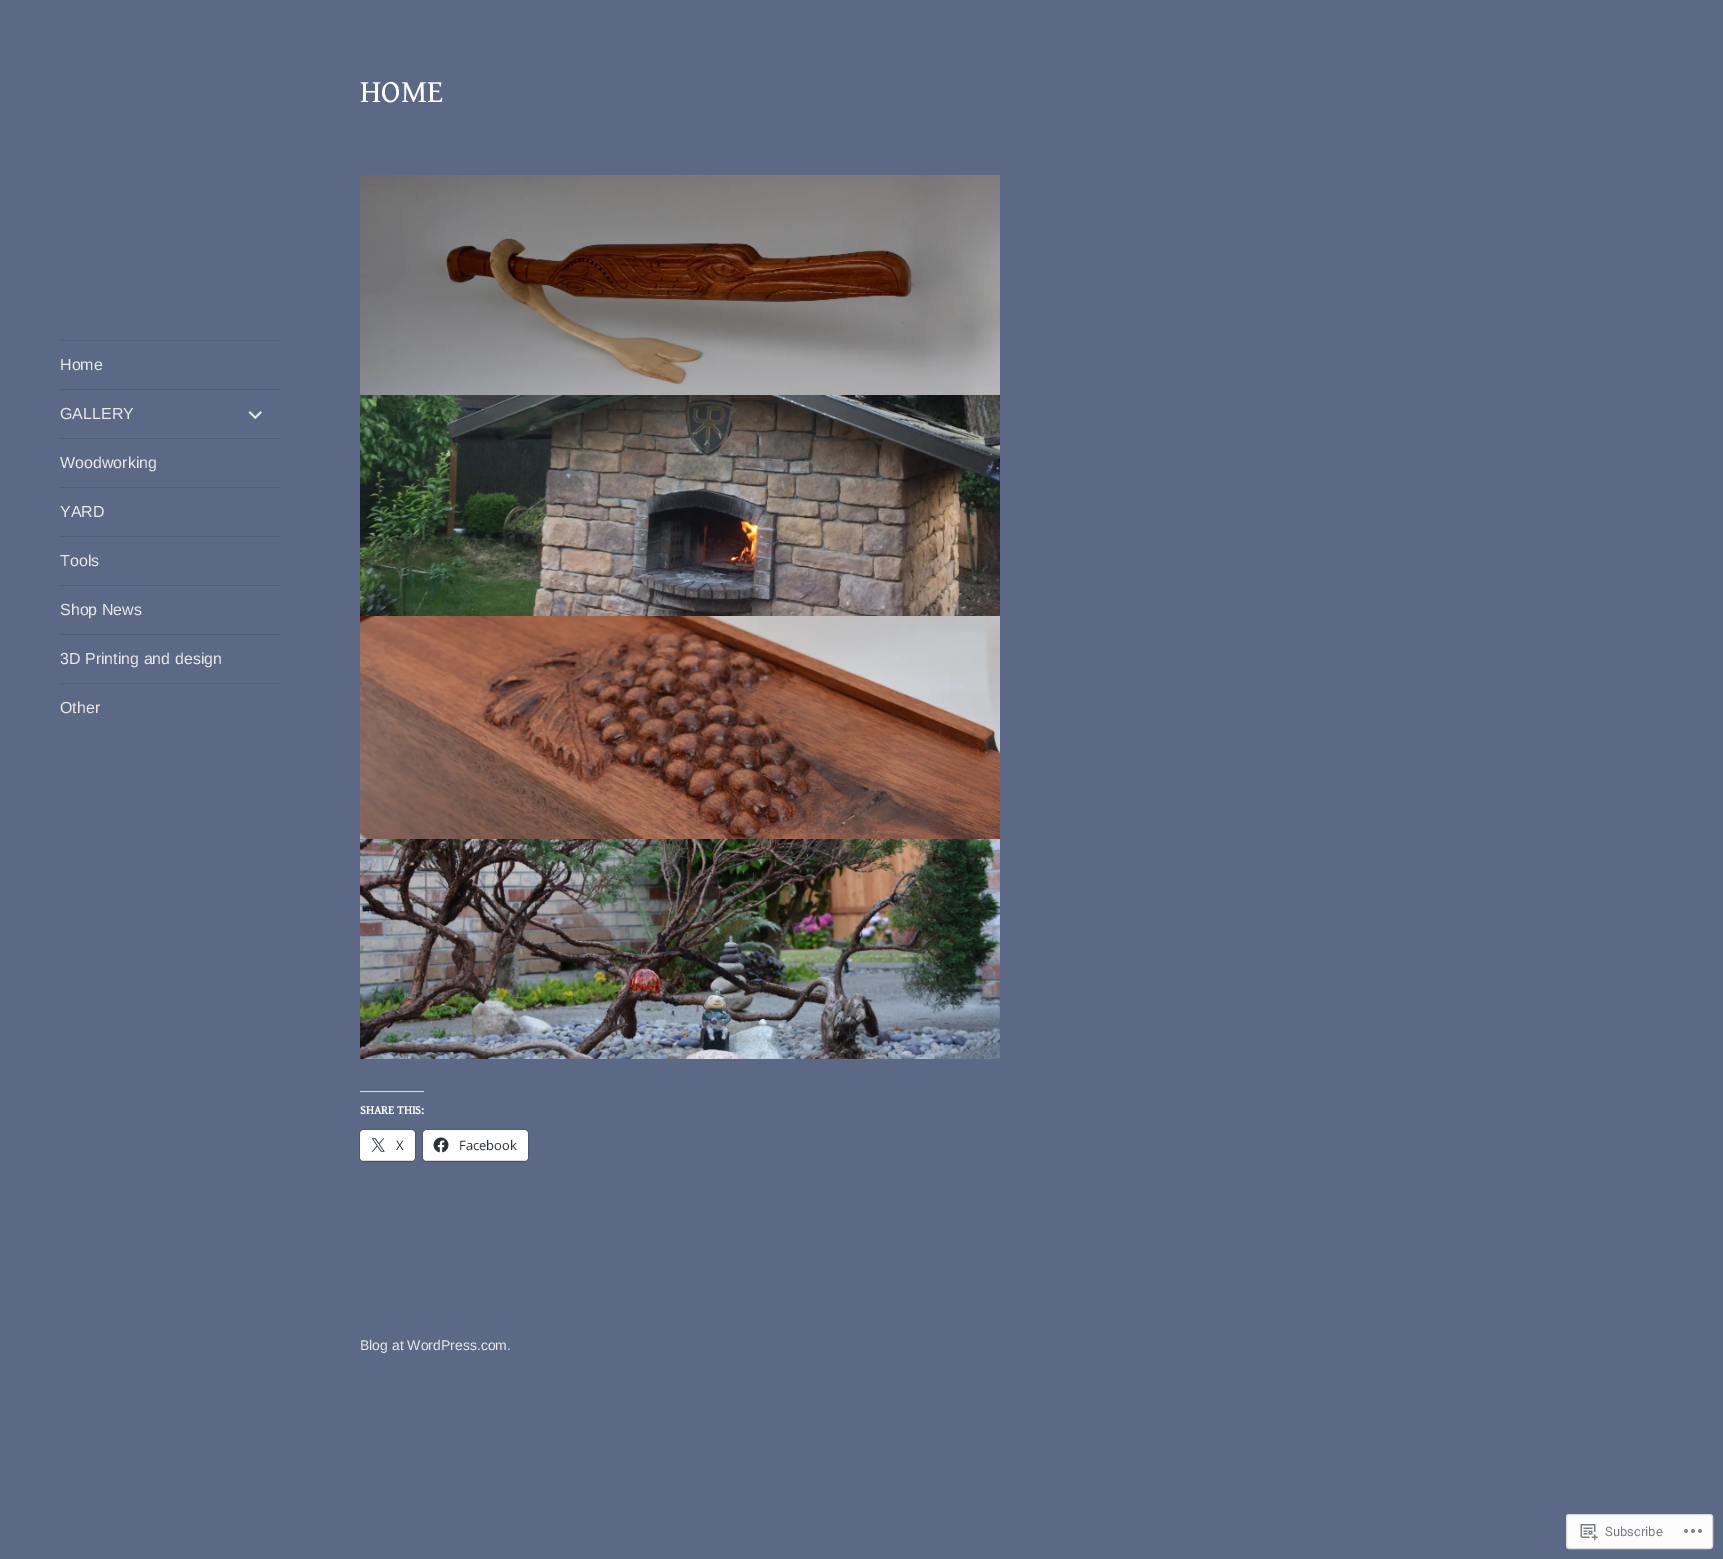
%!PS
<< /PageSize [1723 1559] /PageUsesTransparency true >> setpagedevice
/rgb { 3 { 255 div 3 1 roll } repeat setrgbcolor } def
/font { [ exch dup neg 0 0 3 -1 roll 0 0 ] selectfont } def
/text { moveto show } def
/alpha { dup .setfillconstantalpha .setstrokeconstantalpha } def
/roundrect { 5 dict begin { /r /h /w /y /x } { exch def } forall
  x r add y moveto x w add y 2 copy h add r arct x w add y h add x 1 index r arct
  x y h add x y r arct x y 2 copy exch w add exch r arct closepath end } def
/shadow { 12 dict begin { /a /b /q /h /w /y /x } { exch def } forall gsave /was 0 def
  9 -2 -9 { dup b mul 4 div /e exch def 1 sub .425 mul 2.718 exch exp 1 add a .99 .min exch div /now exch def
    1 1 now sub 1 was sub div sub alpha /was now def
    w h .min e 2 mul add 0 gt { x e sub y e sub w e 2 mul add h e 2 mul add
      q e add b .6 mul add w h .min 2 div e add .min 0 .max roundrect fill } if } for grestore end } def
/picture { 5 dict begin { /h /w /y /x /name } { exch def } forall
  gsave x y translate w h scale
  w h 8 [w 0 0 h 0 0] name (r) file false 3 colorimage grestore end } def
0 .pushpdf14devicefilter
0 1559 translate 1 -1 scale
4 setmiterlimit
91 105 134 rgb
0 0 1723 1559 rectfill
82 95 121 rgb
60 340 220 1 rectfill
60 389 220 1 rectfill
(img_01.rgb) 248 411 14 9 picture
60 438 220 1 rectfill
60 487 220 1 rectfill
60 536 220 1 rectfill
60 585 220 1 rectfill
60 634 220 1 rectfill
60 683 220 1 rectfill
(img_02.rgb) 360 175 640 220 picture
(img_03.rgb) 360 395 640 221 picture
(img_04.rgb) 360 616 640 223 picture
(img_05.rgb) 360 839 640 220 picture
220 220 222 rgb
360 1091 64 1 rectfill
80 92 118 rgb
359.5 1129.5 56 32 4.5 roundrect stroke
0 0 0 rgb
360 1131 55 31 4 1 0.12 shadow
255 255 255 rgb
360 1130 55 31 4 roundrect fill
217 214 207 rgb
362 1160 51 1 rectfill
(img_06.rgb) 371 1138 14 14 picture
80 92 118 rgb
422.5 1129.5 106 32 4.5 roundrect stroke
0 0 0 rgb
423 1131 105 31 4 1 0.12 shadow
255 255 255 rgb
423 1130 105 31 4 roundrect fill
217 214 207 rgb
425 1160 101 1 rectfill
(img_07.rgb) 433 1137 16 16 picture
252 252 253 rgb
1566.5 1514.5 146 34 2.5 roundrect gsave fill grestore
217 218 220 rgb
stroke
(img_08.rgb) 1580 1524 18 17 picture
(img_09.rgb) 1684 1529 18 4 picture
/Arimo-Regular 16 font
234 232 228 rgb
(Home) 60 370 text
(GALLERY) 60 419 text
(Woodworking) 60 468 text
(YARD) 60 517 text
(Tools) 60 566 text
(Shop News) 60 615 text
(3D Printing and design) 60 664 text
(Other) 60 713 text
/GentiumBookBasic-Regular 32 font
255 255 255 rgb
(HOME) 360 102 text
/GentiumBookBasic-Bold 12 font
(SHARE THIS:) 360 1114 text
/OpenSans-Regular 13 font
44 51 56 rgb
(X) 396 1150 text
(Facebook) 459 1150 text
/Arimo-Regular 14 font
234 232 228 rgb
(Blog at WordPress.com.) 360 1350 text
/Roboto-Regular 13 font
119 124 130 rgb
(Subscribe) 1605 1536 text
.poppdf14devicefilter showpage
